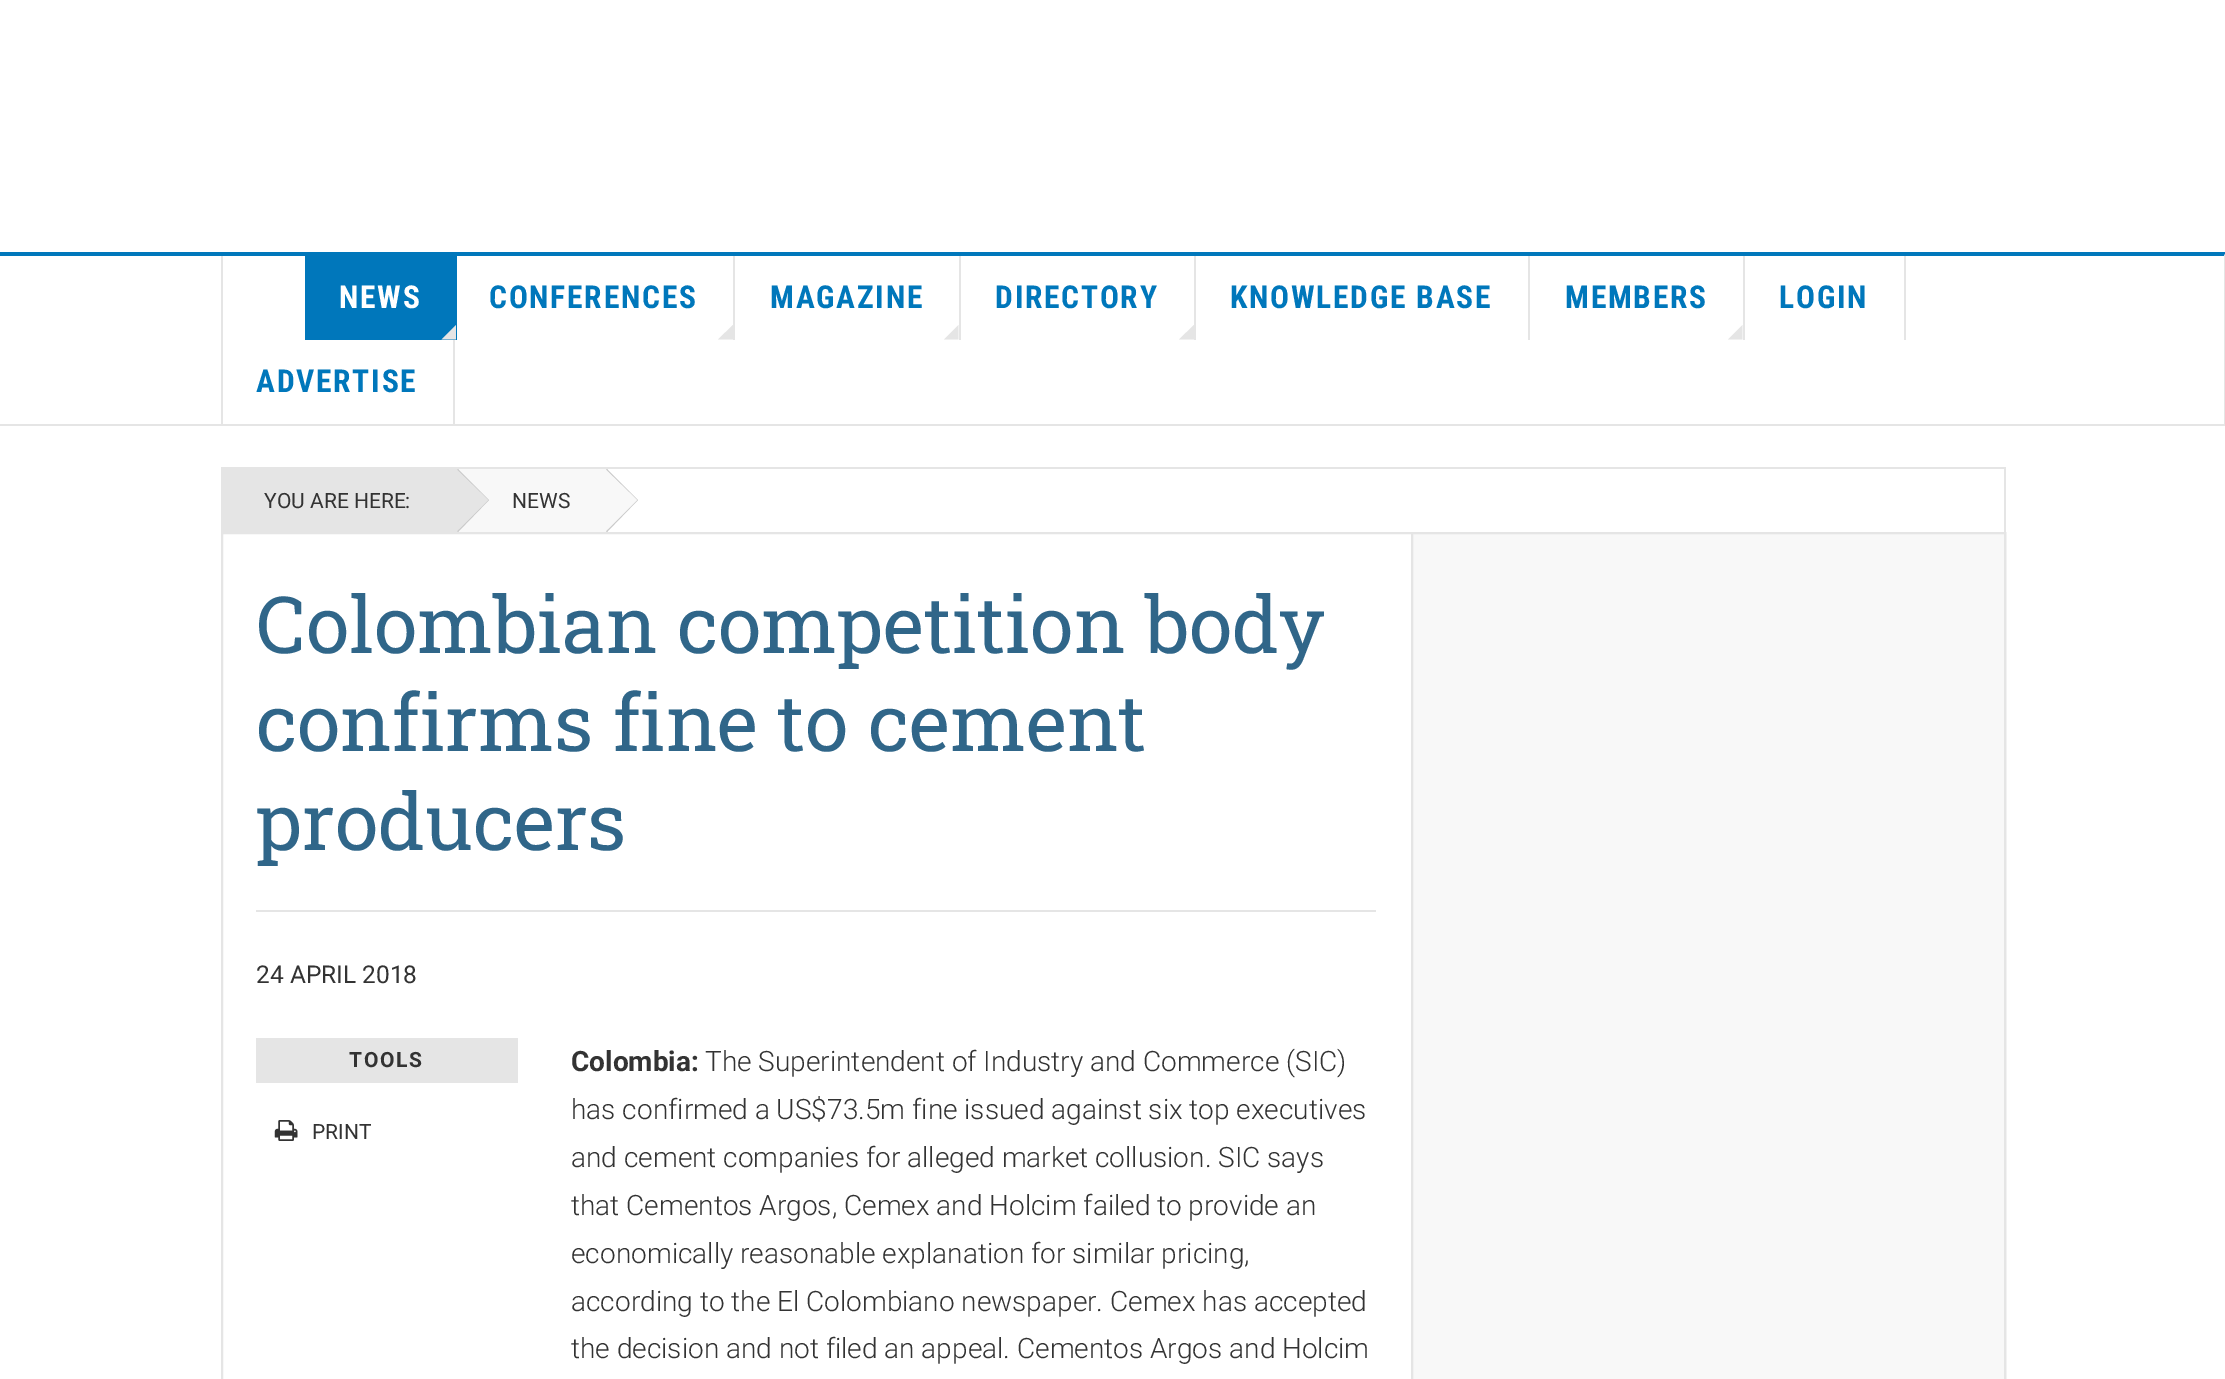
%!PS
<< /PageSize [2225 1379] >> setpagedevice
/rgb { 3 { 255 div 3 1 roll } repeat setrgbcolor } def
/font { [ exch dup neg 0 0 3 -1 roll 0 0 ] selectfont } def
/text { moveto show } def
/picture { 5 dict begin { /h /w /y /x /name } { exch def } forall
  gsave x y translate w h scale
  w h 8 [w 0 0 h 0 0] name (r) file false 3 colorimage grestore end } def
0 1379 translate 1 -1 scale
4 setmiterlimit
255 255 255 rgb
0 0 2225 1379 rectfill
0 119 187 rgb
0 252 moveto 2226 0 rlineto -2 4 rlineto -2224 0 rlineto closepath fill
229 229 229 rgb
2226 252 moveto 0 173 rlineto -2 -1 rlineto 0 -168 rlineto closepath fill
0 424 2225 2 rectfill
221 256 2 168 rectfill
0 119 187 rgb
305 256 152 84 rectfill
229 229 229 rgb
441.5 339.5 moveto 14.5 -14.5 rlineto 0 14.5 rlineto closepath fill
733 256 2 84 rectfill
718 339.5 moveto 15 -14.5 rlineto 0 14.5 rlineto closepath fill
959 256 2 84 rectfill
944 339.5 moveto 14.5 -14.5 rlineto 0 14.5 rlineto closepath fill
1194 256 2 84 rectfill
1179 339.5 moveto 15 -14.5 rlineto 0 14.5 rlineto closepath fill
1528 256 2 84 rectfill
1743 256 2 84 rectfill
1728 339.5 moveto 14.5 -14.5 rlineto 0 14.5 rlineto closepath fill
1904 256 2 84 rectfill
453 340 2 84 rectfill
221 467 1785 2 rectfill
2004 467 2 65 rectfill
221 467 2 65 rectfill
223 469 236 63 rectfill
248 248 248 rgb
459 469 147 63 rectfill
204 204 204 rgb
458 469 moveto -1 1 rlineto 31 30 rlineto -31 31 rlineto 1 1 rlineto 31 -32 rlineto closepath fill
229 229 229 rgb
456 469 moveto 32 31 rlineto -32 32 rlineto -31 -32 rlineto closepath fill
606 469 2 63 rectfill
204 204 204 rgb
607 469 moveto -1 1 rlineto 31 30 rlineto -31 31 rlineto 1 1 rlineto 31 -32 rlineto closepath fill
248 248 248 rgb
605 469 moveto 32 31 rlineto -32 32 rlineto -31 -32 rlineto closepath fill
229 229 229 rgb
2 setlinewidth
222 533 1783 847 rectstroke
256 910 1120 2 rectfill
256 1038 262 45 rectfill
(img_01.rgb) 274 1120 24 21 picture
248 248 248 rgb
1412 533 moveto 593 0 rlineto 0 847 rlineto -593 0 rlineto closepath gsave fill grestore
229 229 229 rgb
stroke
/RobotoCondensed-Bold 31.5 font
255 255 255 rgb
339 308 moveto 1.75 0 (NEWS) ashow
0 119 187 rgb
489 308 moveto 1.75 0 (CONFERENCES) ashow
770 308 moveto 1.75 0 (MAGAZINE) ashow
995 308 moveto 1.75 0 (DIRECTORY) ashow
1230 308 moveto 1.75 0 (KNOWLEDGE BASE) ashow
1565 308 moveto 1.75 0 (MEMBERS) ashow
1779 308 moveto 1.75 0 (LOGIN) ashow
256 392 moveto 1.75 0 (ADVERTISE) ashow
/Roboto-Regular 21 font
51 51 51 rgb
(YOU ARE HERE:) 264 508 text
(NEWS) 512 508 text
/RobotoSlab-Regular 78.75 font
48 102 137 rgb
(Colombian competition body) 256 653 text
(confirms fine to cement) 256 751 text
(producers) 256 850 text
/Roboto-Regular 24.5 font
51 51 51 rgb
(24 APRIL 2018) 256 983 text
/Roboto-Bold 21 font
349 1067 moveto 1.75 0 (TOOLS) ashow
/Roboto-Regular 21 font
(PRINT) 312 1139 text
/Roboto-Bold 28 font
(Colombia:) 571 1071 text
/Roboto-Light 28 font
(The Superintendent of Industry and Commerce \(SIC\)) 705 1071 text
(has confirmed a US$73.5m fine issued against six top executives) 571 1119 text
(and cement companies for alleged market collusion. SIC says) 571 1167 text
(that Cementos Argos, Cemex and Holcim failed to provide an) 571 1215 text
(economically reasonable explanation for similar pricing,) 571 1263 text
(according to the El Colombiano newspaper. Cemex has accepted) 571 1311 text
(the decision and not filed an appeal. Cementos Argos and Holcim) 571 1358 text
showpage
